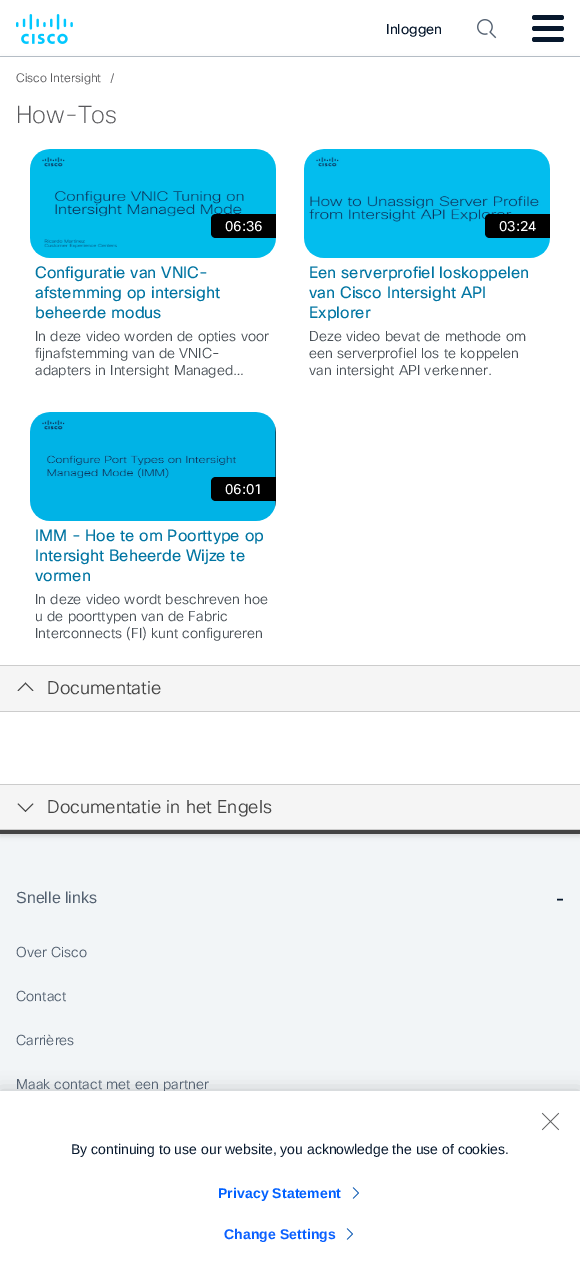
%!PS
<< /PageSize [580 1281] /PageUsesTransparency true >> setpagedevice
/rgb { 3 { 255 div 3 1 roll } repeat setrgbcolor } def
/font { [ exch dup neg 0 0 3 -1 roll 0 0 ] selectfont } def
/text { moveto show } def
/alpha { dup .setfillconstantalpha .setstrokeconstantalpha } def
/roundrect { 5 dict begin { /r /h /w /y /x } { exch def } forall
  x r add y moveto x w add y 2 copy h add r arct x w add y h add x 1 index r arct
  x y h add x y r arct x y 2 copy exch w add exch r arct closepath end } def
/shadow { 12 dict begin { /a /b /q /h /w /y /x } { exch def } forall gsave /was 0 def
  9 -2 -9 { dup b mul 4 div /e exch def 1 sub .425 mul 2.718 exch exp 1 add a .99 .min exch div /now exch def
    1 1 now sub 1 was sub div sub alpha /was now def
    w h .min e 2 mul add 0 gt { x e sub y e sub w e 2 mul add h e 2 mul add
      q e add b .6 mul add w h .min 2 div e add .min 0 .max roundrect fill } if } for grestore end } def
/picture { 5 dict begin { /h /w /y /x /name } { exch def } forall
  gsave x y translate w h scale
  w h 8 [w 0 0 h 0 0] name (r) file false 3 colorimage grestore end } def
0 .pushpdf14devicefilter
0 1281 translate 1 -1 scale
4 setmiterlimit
242 245 247 rgb
0 0 580 1281 rectfill
255 255 255 rgb
0 0 580 56 rectfill
185 193 201 rgb
0 56 580 1 rectfill
(img_01.rgb) 16 14 57 30 picture
(img_02.rgb) 477 19 20 20 picture
7 24 45 rgb
532 15 32 5 2.5 roundrect fill
532 26 32 5 2.5 roundrect fill
532 37 32 5 2.5 roundrect fill
0 0 0 rgb
0 59 580 777 0 2.5 0.12 shadow
255 255 255 rgb
0 57 580 727 rectfill
(img_03.rgb) 30 149 246 109 picture
0 0 0 rgb
216 214 moveto 60 0 rlineto 0 24 rlineto -60 0 rlineto -3 0 -5 -2 -5 -5 rcurveto 0 -14 rlineto 0 -3 2 -5 5 -5 rcurveto closepath fill
(img_04.rgb) 304 149 246 109 picture
490 214 moveto 60 0 rlineto 0 24 rlineto -60 0 rlineto -3 0 -5 -2 -5 -5 rcurveto 0 -14 rlineto 0 -3 2 -5 5 -5 rcurveto closepath fill
(img_05.rgb) 30 412 246 109 picture
216 477 moveto 60 0 rlineto 0 24 rlineto -60 0 rlineto -3 0 -5 -2 -5 -5 rcurveto 0 -14 rlineto 0 -3 2 -5 5 -5 rcurveto closepath fill
68 68 68 rgb
0 830 580 4 rectfill
245 245 245 rgb
0 666 580 45 rectfill
204 204 204 rgb
0 665 580 1 rectfill
0 711 580 1 rectfill
68 68 68 rgb
25.5 682.5 moveto 8 8 rlineto -1 0.5 rlineto -7.5 -7.5 rlineto closepath fill
25.5 682.5 moveto 0.5 1 rlineto -7.5 7.5 rlineto -1 -0.5 rlineto closepath fill
204 204 204 rgb
0 784 580 1 rectfill
245 245 245 rgb
0 785 580 44 rectfill
204 204 204 rgb
0 829 580 1 rectfill
68 68 68 rgb
32.5 803.5 moveto 1 0.5 rlineto -8 8 rlineto -0.5 -1 rlineto closepath fill
18.5 803.5 moveto 7.5 7.5 rlineto -0.5 1 rlineto -8 -8 rlineto closepath fill
0 0 0 rgb
0 1091 580 190 0 9 0.2 shadow
/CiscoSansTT-Regular 14 font
7 24 45 rgb
(Inloggen) 386 34 text
/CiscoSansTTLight-Light 12 font
88 88 91 rgb
(Cisco Intersight) 16 82 text
(/) 110 82 text
/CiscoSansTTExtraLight-ExtraLight 24 font
(How-Tos) 16 123 text
/CiscoSansTT-Regular 14 font
255 255 255 rgb
(06:36) 225 231 text
/CiscoSansTT-Regular 16 font
1 117 162 rgb
(Configuratie van VNIC-) 35 278 text
(afstemming op intersight) 35 298 text
(beheerde modus) 35 318 text
/CiscoSansTTLight-Light 14 font
73 80 87 rgb
(In deze video worden de opties voor) 35 341 text
(fijnafstemming van de VNIC-) 35 358 text
(adapters in Intersight Managed…) 35 375 text
/CiscoSansTT-Regular 14 font
255 255 255 rgb
(03:24) 499 231 text
/CiscoSansTT-Regular 16 font
1 117 162 rgb
(Een serverprofiel loskoppelen) 309 278 text
(van Cisco Intersight API) 309 298 text
(Explorer) 309 318 text
/CiscoSansTTLight-Light 14 font
73 80 87 rgb
(Deze video bevat de methode om) 309 341 text
(een serverprofiel los te koppelen) 309 358 text
(van intersight API verkenner.) 309 375 text
/CiscoSansTT-Regular 14 font
255 255 255 rgb
(06:01) 225 494 text
/CiscoSansTT-Regular 16 font
1 117 162 rgb
(IMM - Hoe te om Poorttype op) 35 541 text
(Intersight Beheerde Wijze te) 35 561 text
(vormen) 35 581 text
/CiscoSansTTLight-Light 14 font
73 80 87 rgb
(In deze video wordt beschreven hoe) 35 604 text
(u de poorttypen van de Fabric) 35 621 text
(Interconnects \(FI\) kunt configureren) 35 638 text
/CiscoSansTTLight-Light 18 font
68 68 68 rgb
(Documentatie) 47 694 text
(Documentatie in het Engels) 47 813 text
/LiberationSans-Regular 16 font
83 96 112 rgb
(Snelle links) 16 903 text
/LiberationSans-Regular 24 font
7 24 45 rgb
(-) 556 906 text
/CiscoSansTTLight-Light 14 font
83 96 112 rgb
(Over Cisco) 16 957 text
(Contact) 16 1001 text
(Carrières) 16 1045 text
(Maak contact met een partner) 16 1089 text
255 255 255 rgb
0 1091 580 190 rectfill
(img_06.rgb) 541 1112 19 19 picture
/LiberationSans-Regular 14 font
7 24 45 rgb
(By continuing to use our website, you acknowledge the use of cookies.) 71 1154 text
/LiberationSans-Bold 14 font
0 96 255 rgb
218 1198 moveto 0.1 0 (Privacy Statement) ashow
(img_07.rgb) 352 1187 7 12 picture
10 96 255 rgb
224 1239 moveto 0.1 0 (Change Settings) ashow
(img_07.rgb) 346 1228 7 12 picture
.poppdf14devicefilter showpage
